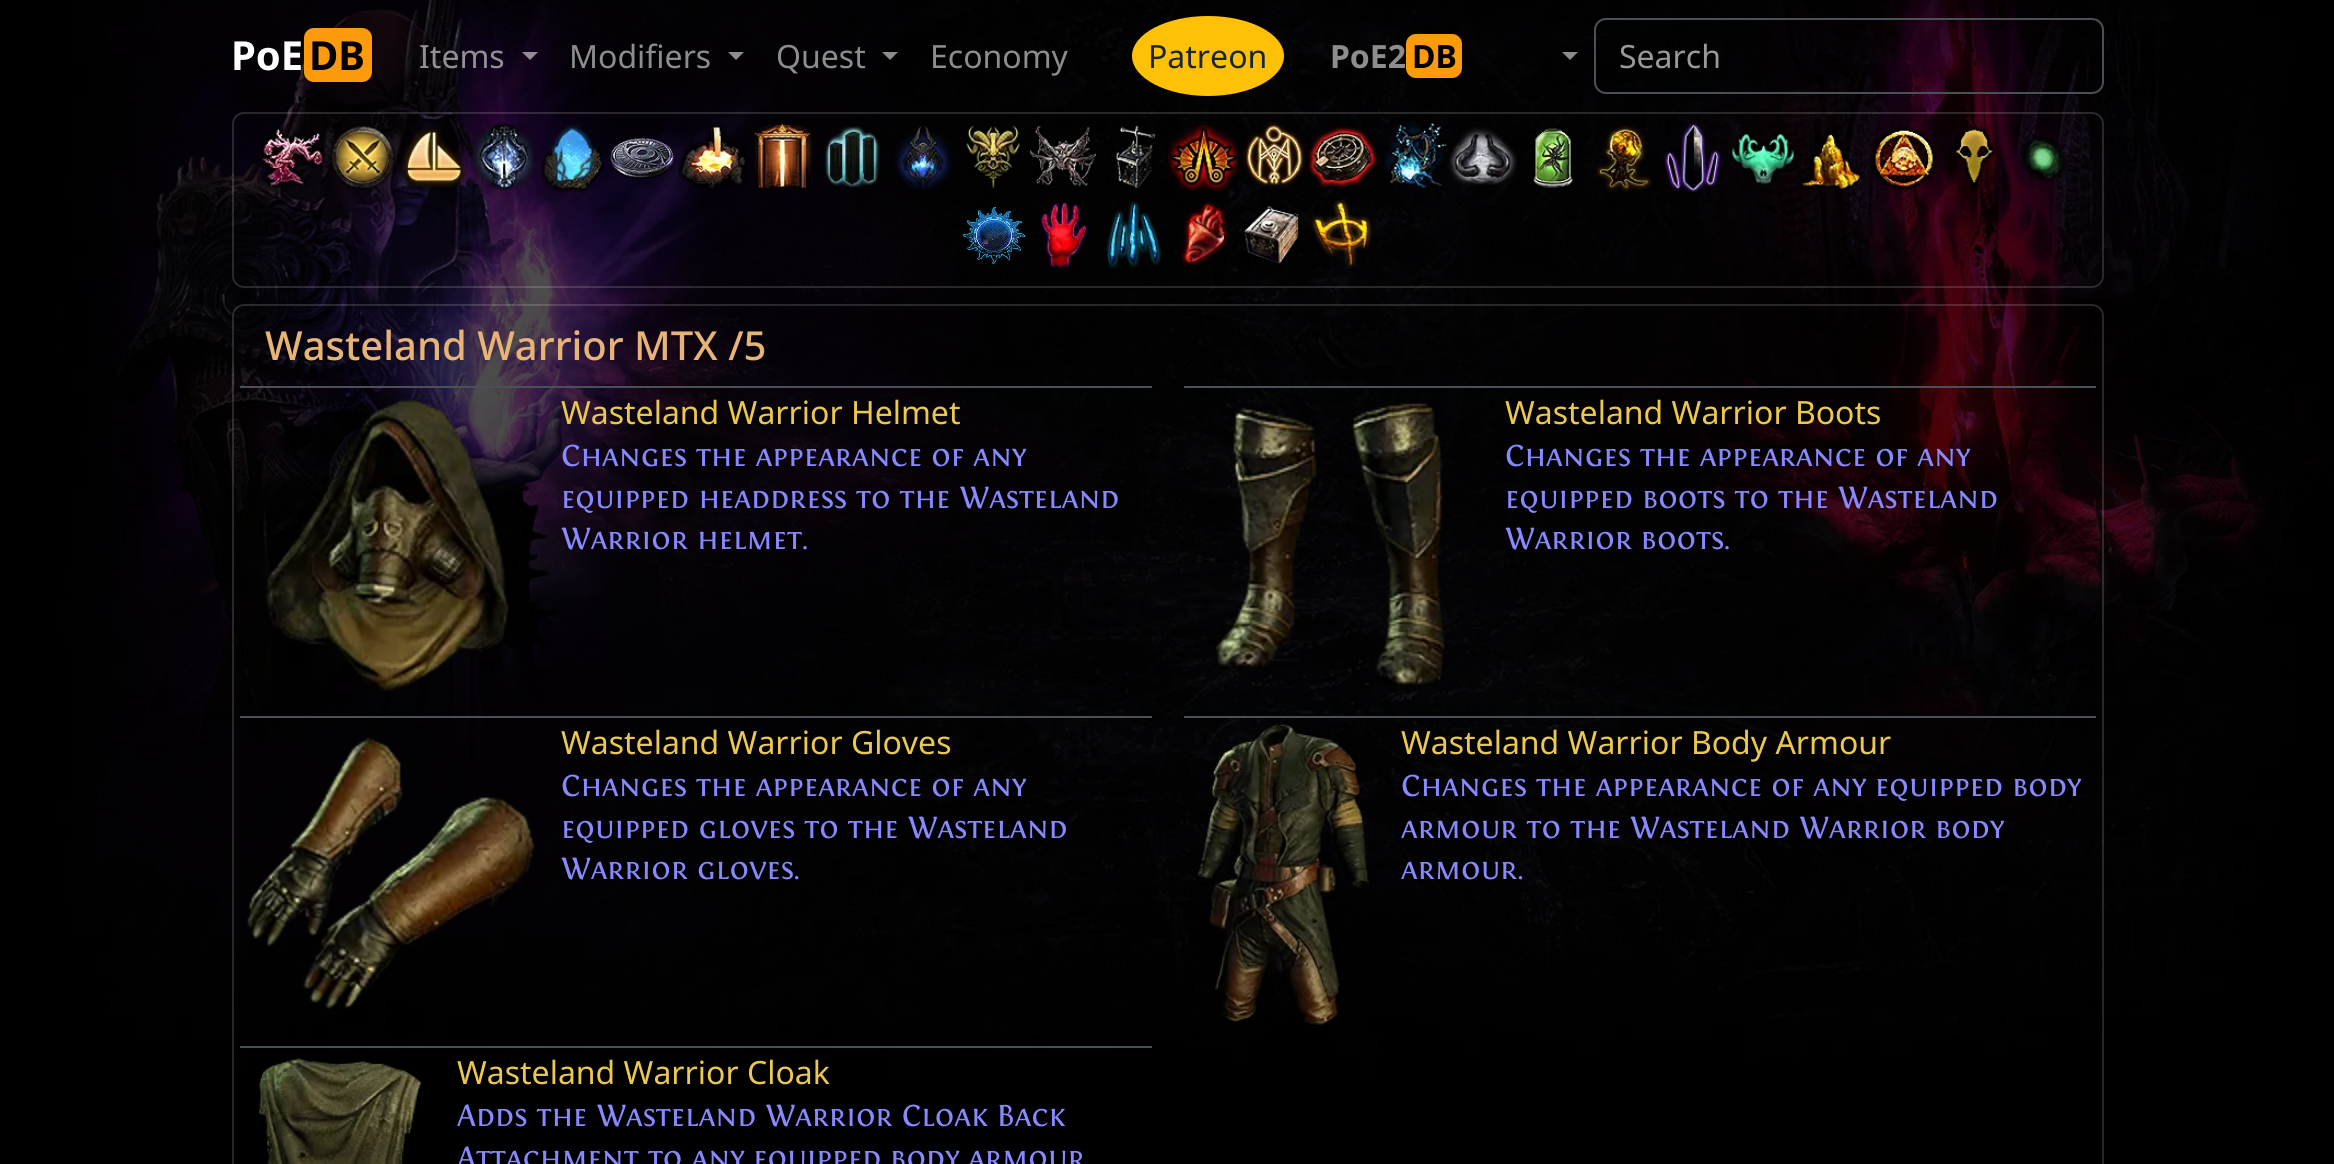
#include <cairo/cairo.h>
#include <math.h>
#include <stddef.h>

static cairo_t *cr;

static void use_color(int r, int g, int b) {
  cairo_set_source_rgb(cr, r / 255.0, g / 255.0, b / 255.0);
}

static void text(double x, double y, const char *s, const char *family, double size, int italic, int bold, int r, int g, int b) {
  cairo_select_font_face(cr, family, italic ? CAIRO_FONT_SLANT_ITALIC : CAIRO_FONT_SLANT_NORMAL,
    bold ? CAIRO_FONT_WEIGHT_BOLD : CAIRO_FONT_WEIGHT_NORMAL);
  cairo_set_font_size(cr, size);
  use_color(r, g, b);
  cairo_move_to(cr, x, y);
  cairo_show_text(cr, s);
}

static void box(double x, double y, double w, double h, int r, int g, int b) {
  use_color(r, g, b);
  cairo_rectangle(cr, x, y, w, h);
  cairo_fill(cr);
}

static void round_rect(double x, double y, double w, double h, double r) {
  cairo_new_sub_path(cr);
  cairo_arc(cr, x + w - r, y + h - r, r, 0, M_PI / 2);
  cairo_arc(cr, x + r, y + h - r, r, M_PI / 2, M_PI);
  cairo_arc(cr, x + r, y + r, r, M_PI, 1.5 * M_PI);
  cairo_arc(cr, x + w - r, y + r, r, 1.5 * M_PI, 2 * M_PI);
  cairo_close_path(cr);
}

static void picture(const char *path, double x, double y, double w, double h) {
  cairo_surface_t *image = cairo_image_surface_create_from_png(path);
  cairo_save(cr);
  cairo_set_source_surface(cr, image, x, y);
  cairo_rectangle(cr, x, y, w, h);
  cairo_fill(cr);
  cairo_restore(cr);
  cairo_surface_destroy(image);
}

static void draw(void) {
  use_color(255, 255, 255);
  cairo_paint(cr);
  picture("img_01.png", 0, 0, 2334, 1164);
  use_color(253, 155, 13);
  round_rect(304, 28, 68, 54, 10);
  cairo_fill(cr);
  cairo_set_source_rgba(cr, 1, 1, 1, 0.55);
  cairo_new_path(cr);
  cairo_move_to(cr, 522, 52);
  cairo_line_to(cr, 538, 52);
  cairo_line_to(cr, 530, 60);
  cairo_close_path(cr);
  cairo_fill(cr);
  use_color(142, 141, 142);
  cairo_new_path(cr);
  cairo_move_to(cr, 728, 52);
  cairo_line_to(cr, 744, 52);
  cairo_line_to(cr, 736, 60);
  cairo_close_path(cr);
  cairo_fill(cr);
  use_color(141, 141, 141);
  cairo_new_path(cr);
  cairo_move_to(cr, 882, 52);
  cairo_line_to(cr, 898, 52);
  cairo_line_to(cr, 890, 60);
  cairo_close_path(cr);
  cairo_fill(cr);
  use_color(255, 193, 7);
  cairo_new_path(cr);
  cairo_move_to(cr, 1208, 16);
  cairo_curve_to(cr, 1250, 16, 1284, 34, 1284, 56);
  cairo_curve_to(cr, 1284, 78, 1250, 96, 1208, 96);
  cairo_curve_to(cr, 1166, 96, 1132, 78, 1132, 56);
  cairo_curve_to(cr, 1132, 34, 1166, 16, 1208, 16);
  cairo_close_path(cr);
  cairo_fill(cr);
  use_color(253, 155, 13);
  round_rect(1406, 34, 56, 44, 10);
  cairo_fill(cr);
  use_color(141, 141, 142);
  cairo_new_path(cr);
  cairo_move_to(cr, 1562, 52);
  cairo_line_to(cr, 1578, 52);
  cairo_line_to(cr, 1570, 60);
  cairo_close_path(cr);
  cairo_fill(cr);
  round_rect(1595, 19, 508, 74, 11);
  use_color(73, 80, 87);
  cairo_stroke(cr);
  round_rect(233, 113, 1870, 174, 11);
  cairo_set_source_rgba(cr, 1, 1, 1, 0.15);
  cairo_stroke(cr);
  picture("img_02.png", 261, 127, 66, 63);
  picture("img_03.png", 330, 126, 65, 64);
  picture("img_04.png", 401, 127, 67, 62);
  picture("img_05.png", 471, 122, 65, 69);
  picture("img_06.png", 540, 125, 66, 67);
  picture("img_07.png", 610, 137, 64, 43);
  picture("img_08.png", 678, 123, 70, 67);
  picture("img_09.png", 754, 123, 59, 65);
  picture("img_10.png", 824, 126, 56, 62);
  picture("img_11.png", 894, 124, 64, 68);
  picture("img_12.png", 966, 125, 54, 64);
  picture("img_13.png", 1030, 126, 66, 61);
  picture("img_14.png", 1116, 125, 40, 63);
  picture("img_15.png", 1168, 122, 70, 70);
  picture("img_16.png", 1243, 122, 63, 66);
  picture("img_17.png", 1308, 126, 70, 63);
  picture("img_18.png", 1384, 122, 63, 67);
  picture("img_19.png", 1448, 127, 69, 58);
  picture("img_20.png", 1532, 127, 41, 61);
  picture("img_21.png", 1595, 125, 57, 67);
  picture("img_22.png", 1664, 122, 58, 70);
  picture("img_23.png", 1731, 133, 64, 53);
  picture("img_24.png", 1799, 132, 64, 58);
  picture("img_25.png", 1870, 125, 67, 67);
  picture("img_26.png", 1954, 125, 43, 65);
  picture("img_27.png", 2020, 135, 48, 46);
  picture("img_28.png", 962, 206, 64, 58);
  picture("img_29.png", 1040, 200, 49, 70);
  picture("img_30.png", 1106, 201, 55, 68);
  picture("img_31.png", 1181, 201, 48, 66);
  picture("img_32.png", 1244, 206, 56, 58);
  picture("img_33.png", 1311, 200, 61, 68);
  round_rect(233, 305, 1870, 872, 11);
  cairo_stroke(cr);
  box(240, 386, 912, 2, 73, 80, 87);
  picture("img_34.png", 266, 399, 243, 293);
  box(1184, 386, 912, 2, 73, 80, 87);
  picture("img_35.png", 1215, 403, 230, 282);
  box(240, 716, 912, 2, 73, 80, 87);
  picture("img_36.png", 247, 737, 288, 272);
  box(1184, 716, 912, 2, 73, 80, 87);
  picture("img_37.png", 1197, 724, 172, 301);
  box(240, 1046, 912, 2, 73, 80, 87);
  picture("img_38.png", 259, 1058, 162, 106);
  text(231, 70, "PoE", "Noto Sans", 40, 0, 1, 255, 255, 255);
  text(309, 70, "DB", "Noto Sans", 40, 0, 1, 0, 0, 0);
  text(419, 68, "Items", "Noto Sans", 32, 0, 0, 146, 143, 149);
  text(569, 68, "Modifiers", "Noto Sans", 32, 0, 0, 141, 141, 142);
  text(776, 68, "Quest", "Noto Sans", 32, 0, 0, 141, 141, 142);
  text(930, 68, "Economy", "Noto Sans", 32, 0, 0, 141, 141, 142);
  text(1148, 68, "Patreon", "Noto Sans", 32, 0, 0, 23, 37, 52);
  text(1330, 68, "PoE2", "Noto Sans", 32, 0, 1, 141, 141, 142);
  text(1412, 68, "DB", "Noto Sans", 32, 0, 1, 0, 0, 0);
  text(1619, 68, "Search", "Noto Sans", 32, 0, 0, 153, 153, 153);
  text(265, 360, "Wasteland Warrior MTX /5", "Noto Sans Medium", 40, 0, 0, 231, 180, 120);
  text(561, 424, "Wasteland Warrior Helmet", "Noto Sans", 32, 0, 0, 235, 200, 80);
  text(561, 466, "Changes the appearance of any", "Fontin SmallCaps", 32, 0, 0, 136, 136, 255);
  text(561, 508, "equipped headdress to the Wasteland", "Fontin SmallCaps", 32, 0, 0, 136, 136, 255);
  text(561, 549, "Warrior helmet.", "Fontin SmallCaps", 32, 0, 0, 136, 136, 255);
  text(1505, 424, "Wasteland Warrior Boots", "Noto Sans", 32, 0, 0, 235, 200, 80);
  text(1505, 466, "Changes the appearance of any", "Fontin SmallCaps", 32, 0, 0, 136, 136, 255);
  text(1505, 508, "equipped boots to the Wasteland", "Fontin SmallCaps", 32, 0, 0, 136, 136, 255);
  text(1505, 549, "Warrior boots.", "Fontin SmallCaps", 32, 0, 0, 136, 136, 255);
  text(561, 754, "Wasteland Warrior Gloves", "Noto Sans", 32, 0, 0, 235, 200, 80);
  text(561, 796, "Changes the appearance of any", "Fontin SmallCaps", 32, 0, 0, 136, 136, 255);
  text(561, 838, "equipped gloves to the Wasteland", "Fontin SmallCaps", 32, 0, 0, 136, 136, 255);
  text(561, 879, "Warrior gloves.", "Fontin SmallCaps", 32, 0, 0, 136, 136, 255);
  text(1401, 754, "Wasteland Warrior Body Armour", "Noto Sans", 32, 0, 0, 235, 200, 80);
  text(1401, 796, "Changes the appearance of any equipped body", "Fontin SmallCaps", 32, 0, 0, 136, 136, 255);
  text(1401, 838, "armour to the Wasteland Warrior body", "Fontin SmallCaps", 32, 0, 0, 136, 136, 255);
  text(1401, 879, "armour.", "Fontin SmallCaps", 32, 0, 0, 136, 136, 255);
  text(457, 1084, "Wasteland Warrior Cloak", "Noto Sans", 32, 0, 0, 235, 200, 80);
  text(457, 1126, "Adds the Wasteland Warrior Cloak Back", "Fontin SmallCaps", 32, 0, 0, 136, 136, 255);
  text(457, 1168, "Attachment to any equipped body armour", "Fontin SmallCaps", 32, 0, 0, 136, 136, 255);
}

int main(void) {
  cairo_surface_t *surface = cairo_image_surface_create(CAIRO_FORMAT_RGB24, 2334, 1164);
  cr = cairo_create(surface);
  cairo_font_options_t *options = cairo_font_options_create();
  cairo_font_options_set_hint_metrics(options, CAIRO_HINT_METRICS_OFF);
  cairo_font_options_set_hint_style(options, CAIRO_HINT_STYLE_NONE);
  cairo_set_font_options(cr, options);
  cairo_set_miter_limit(cr, 4);
  draw();
  cairo_surface_write_to_png(surface, "out.png");
  cairo_font_options_destroy(options);
  cairo_destroy(cr);
  cairo_surface_destroy(surface);
  return 0;
}
